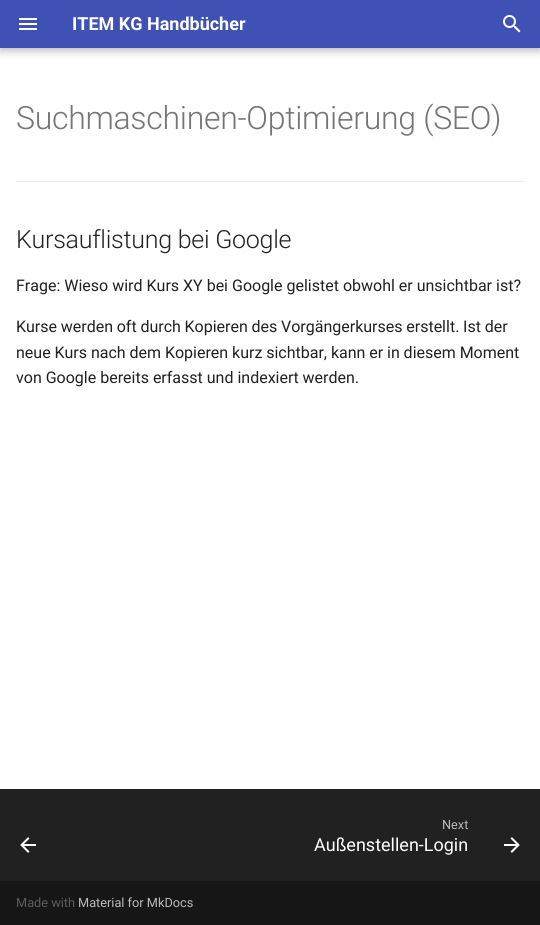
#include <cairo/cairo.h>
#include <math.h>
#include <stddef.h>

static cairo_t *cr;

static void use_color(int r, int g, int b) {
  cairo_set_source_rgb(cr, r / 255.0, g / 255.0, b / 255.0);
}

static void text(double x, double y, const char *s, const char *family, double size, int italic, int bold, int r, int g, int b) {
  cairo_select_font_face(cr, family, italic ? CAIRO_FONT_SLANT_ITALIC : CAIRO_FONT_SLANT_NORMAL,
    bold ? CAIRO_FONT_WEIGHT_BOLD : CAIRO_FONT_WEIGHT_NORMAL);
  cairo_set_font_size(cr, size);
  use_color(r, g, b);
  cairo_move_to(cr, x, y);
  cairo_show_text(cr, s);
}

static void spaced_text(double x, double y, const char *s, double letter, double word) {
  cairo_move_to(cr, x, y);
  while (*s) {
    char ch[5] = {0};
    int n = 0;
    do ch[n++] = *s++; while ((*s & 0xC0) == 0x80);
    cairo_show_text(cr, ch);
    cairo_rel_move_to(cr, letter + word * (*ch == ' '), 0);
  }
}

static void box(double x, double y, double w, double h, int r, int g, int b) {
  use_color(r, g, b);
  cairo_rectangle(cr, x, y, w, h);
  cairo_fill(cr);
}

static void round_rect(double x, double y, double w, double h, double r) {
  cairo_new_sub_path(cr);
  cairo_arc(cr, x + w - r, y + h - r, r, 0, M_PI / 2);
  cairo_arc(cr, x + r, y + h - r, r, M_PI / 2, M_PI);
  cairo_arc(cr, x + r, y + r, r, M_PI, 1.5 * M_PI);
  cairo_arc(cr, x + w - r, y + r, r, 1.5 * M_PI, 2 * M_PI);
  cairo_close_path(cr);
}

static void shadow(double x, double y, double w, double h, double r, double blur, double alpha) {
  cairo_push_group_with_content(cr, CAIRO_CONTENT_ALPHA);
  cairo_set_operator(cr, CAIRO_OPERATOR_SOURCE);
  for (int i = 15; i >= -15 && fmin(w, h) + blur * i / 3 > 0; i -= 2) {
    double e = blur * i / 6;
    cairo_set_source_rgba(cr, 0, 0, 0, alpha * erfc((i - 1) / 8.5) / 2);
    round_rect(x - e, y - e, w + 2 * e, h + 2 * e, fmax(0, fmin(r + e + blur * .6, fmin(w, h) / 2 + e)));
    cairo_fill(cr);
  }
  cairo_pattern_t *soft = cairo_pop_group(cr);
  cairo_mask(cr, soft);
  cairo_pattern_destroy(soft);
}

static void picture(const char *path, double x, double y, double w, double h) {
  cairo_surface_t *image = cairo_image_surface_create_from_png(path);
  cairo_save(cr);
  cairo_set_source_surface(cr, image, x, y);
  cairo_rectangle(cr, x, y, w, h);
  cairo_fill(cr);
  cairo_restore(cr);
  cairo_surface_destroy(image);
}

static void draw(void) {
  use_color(255, 255, 255);
  cairo_paint(cr);
  use_color(0, 0, 0);
  shadow(0, 4, 540, 48, 0, 4, 0.2);
  shadow(0, 0, 540, 48, 0, 2, 0.1);
  box(0, 0, 540, 48, 64, 81, 181);
  picture("img_01.png", 19, 18, 18, 12);
  picture("img_02.png", 503, 15, 18, 18);
  box(16, 181, 508, 1, 237, 237, 237);
  box(0, 789, 540, 92, 33, 33, 33);
  picture("img_03.png", 20, 837, 16, 16);
  picture("img_04.png", 504, 837, 16, 16);
  box(0, 881, 540, 44, 22, 22, 22);
  text(72, 30, "ITEM KG Handbücher", "Roboto", 18, 0, 1, 255, 255, 255);
  cairo_select_font_face(cr, "Roboto Light", CAIRO_FONT_SLANT_NORMAL, CAIRO_FONT_WEIGHT_NORMAL);
  cairo_set_font_size(cr, 32);
  use_color(117, 117, 117);
  spaced_text(16, 129, "Suchmaschinen-Optimierung (SEO)", -0.3, 0);
  cairo_set_font_size(cr, 25);
  use_color(33, 33, 33);
  spaced_text(16, 248, "Kursauflistung bei Google", -0.25, 0);
  text(16, 291, "Frage: Wieso wird Kurs XY bei Google gelistet obwohl er unsichtbar ist?", "Roboto", 16, 0, 0, 33, 33, 33);
  spaced_text(16, 332, "Kurse werden oft durch Kopieren des Vorgängerkurses erstellt. Ist der", 0, -0.25);
  spaced_text(16, 358, "neue Kurs nach dem Kopieren kurz sichtbar, kann er in diesem Moment", 0, -0.1);
  text(16, 383, "von Google bereits erfasst und indexiert werden.", "Roboto", 16, 0, 0, 33, 33, 33);
  text(442, 829, "Next", "Roboto", 12.75, 0, 0, 185, 185, 185);
  text(314, 851, "Außenstellen-Login", "Roboto", 18, 0, 0, 255, 255, 255);
  text(16, 907, "Made with", "Roboto", 12.75, 0, 0, 92, 92, 92);
  text(78, 907, "Material for MkDocs", "Roboto", 12.75, 0, 0, 185, 185, 185);
}

int main(void) {
  cairo_surface_t *surface = cairo_image_surface_create(CAIRO_FORMAT_RGB24, 540, 925);
  cr = cairo_create(surface);
  cairo_font_options_t *options = cairo_font_options_create();
  cairo_font_options_set_hint_metrics(options, CAIRO_HINT_METRICS_OFF);
  cairo_font_options_set_hint_style(options, CAIRO_HINT_STYLE_NONE);
  cairo_set_font_options(cr, options);
  cairo_set_miter_limit(cr, 4);
  draw();
  cairo_surface_write_to_png(surface, "out.png");
  cairo_font_options_destroy(options);
  cairo_destroy(cr);
  cairo_surface_destroy(surface);
  return 0;
}
